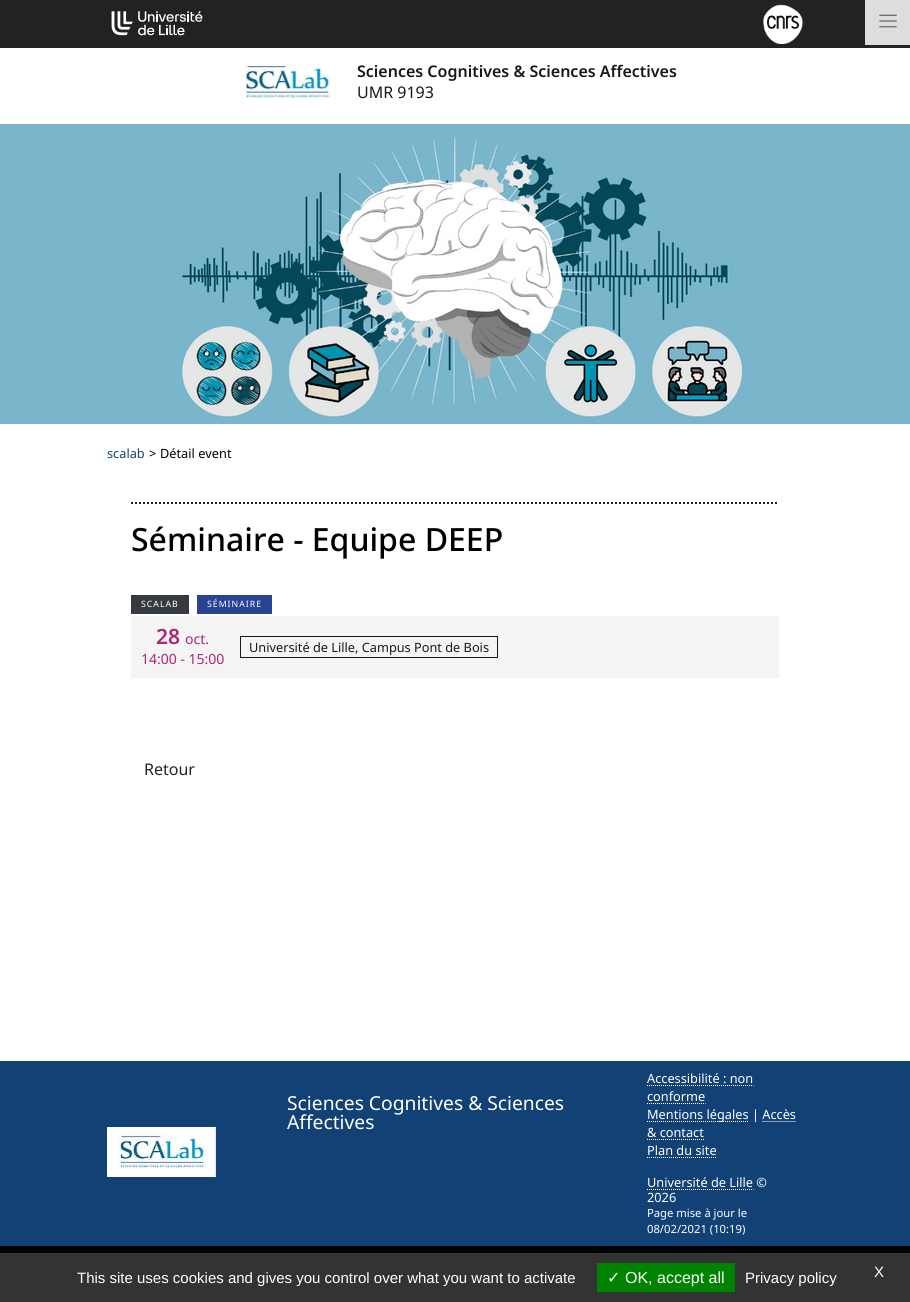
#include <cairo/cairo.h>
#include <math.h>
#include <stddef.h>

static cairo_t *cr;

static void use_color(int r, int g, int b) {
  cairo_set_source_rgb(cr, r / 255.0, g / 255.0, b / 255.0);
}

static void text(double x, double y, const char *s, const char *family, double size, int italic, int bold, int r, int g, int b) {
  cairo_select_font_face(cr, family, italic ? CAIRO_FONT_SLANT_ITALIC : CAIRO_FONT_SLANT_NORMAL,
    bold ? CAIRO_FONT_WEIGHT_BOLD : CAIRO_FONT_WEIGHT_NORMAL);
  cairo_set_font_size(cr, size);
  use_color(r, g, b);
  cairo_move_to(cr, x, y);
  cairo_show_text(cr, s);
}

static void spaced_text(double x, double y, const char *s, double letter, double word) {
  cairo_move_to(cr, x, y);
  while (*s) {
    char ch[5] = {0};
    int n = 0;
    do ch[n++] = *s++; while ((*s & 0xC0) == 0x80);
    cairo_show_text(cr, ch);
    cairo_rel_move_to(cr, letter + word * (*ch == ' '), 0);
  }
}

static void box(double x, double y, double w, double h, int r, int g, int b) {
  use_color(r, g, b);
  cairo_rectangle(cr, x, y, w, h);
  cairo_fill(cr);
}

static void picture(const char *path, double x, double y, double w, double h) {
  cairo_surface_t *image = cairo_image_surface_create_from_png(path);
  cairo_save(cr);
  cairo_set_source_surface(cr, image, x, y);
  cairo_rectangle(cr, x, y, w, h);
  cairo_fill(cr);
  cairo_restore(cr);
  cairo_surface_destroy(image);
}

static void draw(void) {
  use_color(255, 255, 255);
  cairo_paint(cr);
  box(0, 0, 910, 48, 34, 34, 34);
  picture("img_01.png", 111, 11, 92, 25);
  picture("img_02.png", 763, 4, 40, 40);
  box(865, 0, 45, 45, 221, 221, 221);
  picture("img_03.png", 879, 14, 18, 14);
  picture("img_04.png", 244, 63, 87, 35);
  picture("img_05.png", 0, 124, 910, 300);
  cairo_new_path(cr);
  cairo_move_to(cr, 131, 503);
  cairo_line_to(cr, 779, 503);
  use_color(34, 34, 34);
  cairo_set_dash(cr, (double[]){2, 2}, 2, 0);
  cairo_stroke(cr);
  box(131, 595, 58, 19, 52, 58, 64);
  box(197, 595, 75, 19, 39, 67, 145);
  box(131, 616, 648, 62, 244, 244, 244);
  cairo_rectangle(cr, 240.5, 636.5, 257, 21);
  use_color(24, 24, 24);
  cairo_set_line_width(cr, 1);
  cairo_set_dash(cr, NULL, 0, 0);
  cairo_stroke(cr);
  box(0, 1061, 910, 185, 18, 65, 117);
  cairo_new_path(cr);
  cairo_move_to(cr, 647, 1085.5);
  cairo_line_to(cr, 753.5, 1085.5);
  use_color(255, 255, 255);
  cairo_set_dash(cr, (double[]){1, 1}, 2, 0);
  cairo_stroke(cr);
  cairo_new_path(cr);
  cairo_move_to(cr, 647, 1103.5);
  cairo_line_to(cr, 705.5, 1103.5);
  cairo_stroke(cr);
  cairo_new_path(cr);
  cairo_move_to(cr, 647, 1121.5);
  cairo_line_to(cr, 749, 1121.5);
  cairo_stroke(cr);
  cairo_new_path(cr);
  cairo_move_to(cr, 762.5, 1121.5);
  cairo_line_to(cr, 796.5, 1121.5);
  cairo_stroke(cr);
  cairo_new_path(cr);
  cairo_move_to(cr, 647, 1139.5);
  cairo_line_to(cr, 704, 1139.5);
  cairo_stroke(cr);
  cairo_new_path(cr);
  cairo_move_to(cr, 647, 1157.5);
  cairo_line_to(cr, 717, 1157.5);
  cairo_stroke(cr);
  cairo_new_path(cr);
  cairo_move_to(cr, 647, 1189.5);
  cairo_line_to(cr, 753.5, 1189.5);
  cairo_stroke(cr);
  picture("img_06.png", 107, 1127, 109, 50);
  box(0, 1246, 910, 7, 0, 0, 0);
  box(0, 1253, 910, 49, 51, 51, 51);
  box(597, 1263, 138, 29, 0, 131, 0);
  text(357, 77, "Sciences Cognitives & Sciences Affectives", "Noto Sans SemiBold", 16, 0, 0, 24, 24, 24);
  text(357, 98, "UMR 9193", "Noto Sans", 16, 0, 0, 24, 24, 24);
  text(107, 458, "scalab", "Noto Sans", 12.75, 0, 0, 18, 65, 117);
  text(149, 458, ">", "Noto Sans", 12.75, 0, 0, 0, 0, 0);
  text(160, 458, "Détail event", "Noto Sans", 12.75, 0, 0, 0, 0, 0);
  text(131, 551, "Séminaire - Equipe DEEP", "Noto Sans Medium", 32, 0, 0, 0, 0, 0);
  cairo_select_font_face(cr, "Noto Sans", CAIRO_FONT_SLANT_NORMAL, CAIRO_FONT_WEIGHT_NORMAL);
  cairo_set_font_size(cr, 8.75);
  use_color(255, 255, 255);
  spaced_text(141, 607, "SCALAB", 1, 0);
  spaced_text(207, 607, "SÉMINAIRE", 1, 0);
  text(156, 644, "28", "Noto Sans SemiBold", 21, 0, 0, 174, 37, 115);
  text(185, 644, "oct.", "Noto Sans", 14, 0, 0, 174, 37, 115);
  text(141, 664, "14:00 - 15:00", "Noto Sans", 14, 0, 0, 174, 37, 115);
  text(249, 652, "Université de Lille, Campus Pont de Bois", "Noto Sans", 12.75, 0, 0, 24, 24, 24);
  text(144, 775, "Retour", "Noto Sans", 16, 0, 0, 33, 37, 41);
  text(287, 1110, "Sciences Cognitives & Sciences", "Noto Sans", 19.25, 0, 0, 255, 255, 255);
  text(287, 1129, "Affectives", "Noto Sans", 19.25, 0, 0, 255, 255, 255);
  text(647, 1083, "Accessibilité : non", "Noto Sans", 12.75, 0, 0, 255, 255, 255);
  text(647, 1101, "conforme", "Noto Sans", 12.75, 0, 0, 255, 255, 255);
  text(647, 1119, "Mentions légales | Accès", "Noto Sans", 12.75, 0, 0, 255, 255, 255);
  text(647, 1137, "& contact", "Noto Sans", 12.75, 0, 0, 255, 255, 255);
  text(647, 1155, "Plan du site", "Noto Sans", 12.75, 0, 0, 255, 255, 255);
  text(647, 1187, "Université de Lille ©", "Noto Sans", 12.75, 0, 0, 255, 255, 255);
  text(647, 1202, "2026", "Noto Sans", 12.75, 0, 0, 255, 255, 255);
  text(647, 1217, "Page mise à jour le", "Noto Sans", 11.25, 0, 0, 255, 255, 255);
  text(647, 1233, "08/02/2021 (10:19)", "Noto Sans", 11.25, 0, 0, 255, 255, 255);
  text(77, 1283, "This site uses cookies and gives you control over what you want to activate", "Liberation Sans", 15, 0, 0, 255, 255, 255);
  text(607, 1283, "✓", "DejaVu Sans", 16, 0, 0, 255, 255, 255);
  text(625, 1283, "OK, accept all", "Liberation Sans", 16, 0, 0, 255, 255, 255);
  text(745, 1283, "Privacy policy", "Liberation Sans", 15, 0, 0, 255, 255, 255);
  text(874, 1277, "X", "Liberation Sans", 15, 0, 0, 255, 255, 255);
}

int main(void) {
  cairo_surface_t *surface = cairo_image_surface_create(CAIRO_FORMAT_RGB24, 910, 1302);
  cr = cairo_create(surface);
  cairo_font_options_t *options = cairo_font_options_create();
  cairo_font_options_set_hint_metrics(options, CAIRO_HINT_METRICS_OFF);
  cairo_font_options_set_hint_style(options, CAIRO_HINT_STYLE_NONE);
  cairo_set_font_options(cr, options);
  cairo_set_miter_limit(cr, 4);
  draw();
  cairo_surface_write_to_png(surface, "out.png");
  cairo_font_options_destroy(options);
  cairo_destroy(cr);
  cairo_surface_destroy(surface);
  return 0;
}
